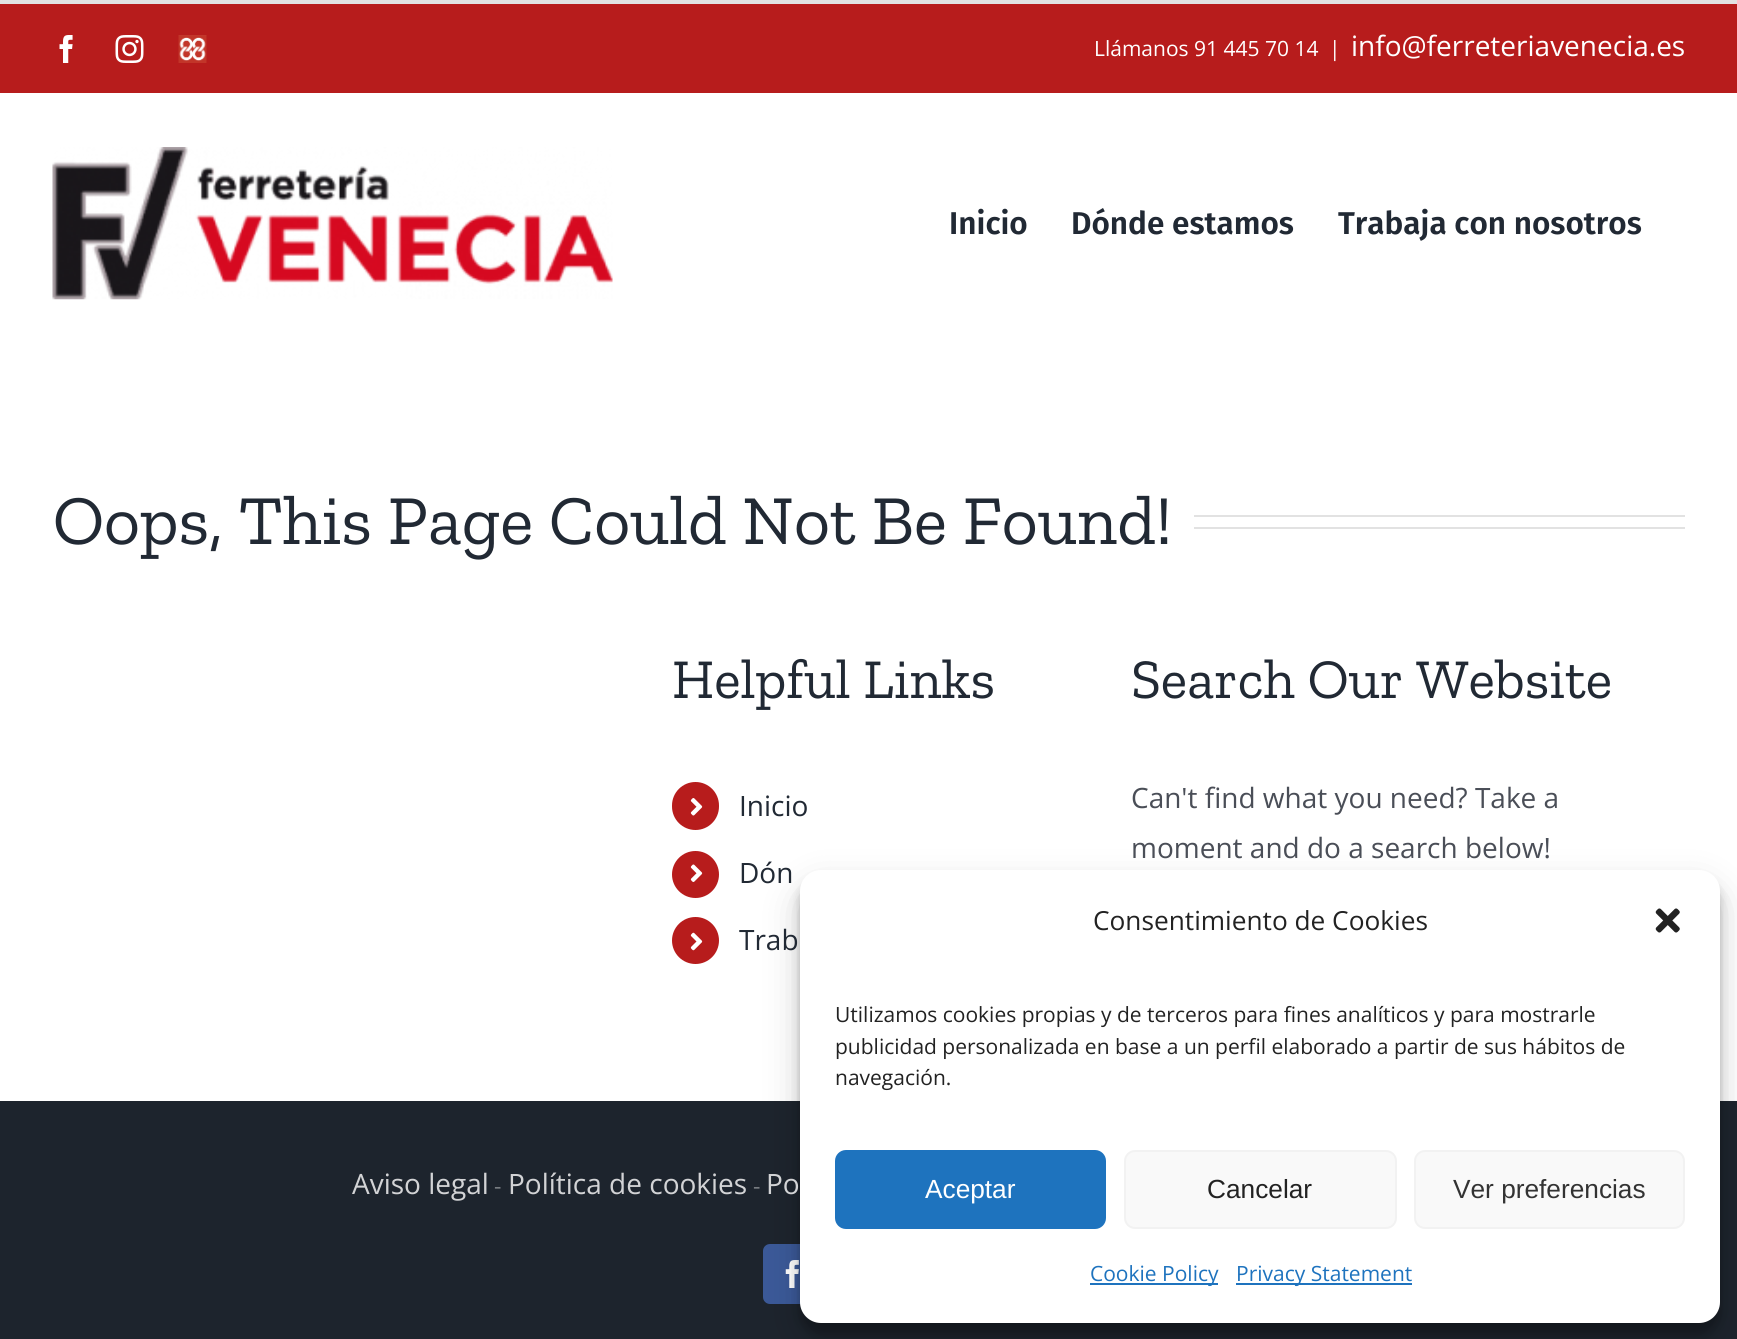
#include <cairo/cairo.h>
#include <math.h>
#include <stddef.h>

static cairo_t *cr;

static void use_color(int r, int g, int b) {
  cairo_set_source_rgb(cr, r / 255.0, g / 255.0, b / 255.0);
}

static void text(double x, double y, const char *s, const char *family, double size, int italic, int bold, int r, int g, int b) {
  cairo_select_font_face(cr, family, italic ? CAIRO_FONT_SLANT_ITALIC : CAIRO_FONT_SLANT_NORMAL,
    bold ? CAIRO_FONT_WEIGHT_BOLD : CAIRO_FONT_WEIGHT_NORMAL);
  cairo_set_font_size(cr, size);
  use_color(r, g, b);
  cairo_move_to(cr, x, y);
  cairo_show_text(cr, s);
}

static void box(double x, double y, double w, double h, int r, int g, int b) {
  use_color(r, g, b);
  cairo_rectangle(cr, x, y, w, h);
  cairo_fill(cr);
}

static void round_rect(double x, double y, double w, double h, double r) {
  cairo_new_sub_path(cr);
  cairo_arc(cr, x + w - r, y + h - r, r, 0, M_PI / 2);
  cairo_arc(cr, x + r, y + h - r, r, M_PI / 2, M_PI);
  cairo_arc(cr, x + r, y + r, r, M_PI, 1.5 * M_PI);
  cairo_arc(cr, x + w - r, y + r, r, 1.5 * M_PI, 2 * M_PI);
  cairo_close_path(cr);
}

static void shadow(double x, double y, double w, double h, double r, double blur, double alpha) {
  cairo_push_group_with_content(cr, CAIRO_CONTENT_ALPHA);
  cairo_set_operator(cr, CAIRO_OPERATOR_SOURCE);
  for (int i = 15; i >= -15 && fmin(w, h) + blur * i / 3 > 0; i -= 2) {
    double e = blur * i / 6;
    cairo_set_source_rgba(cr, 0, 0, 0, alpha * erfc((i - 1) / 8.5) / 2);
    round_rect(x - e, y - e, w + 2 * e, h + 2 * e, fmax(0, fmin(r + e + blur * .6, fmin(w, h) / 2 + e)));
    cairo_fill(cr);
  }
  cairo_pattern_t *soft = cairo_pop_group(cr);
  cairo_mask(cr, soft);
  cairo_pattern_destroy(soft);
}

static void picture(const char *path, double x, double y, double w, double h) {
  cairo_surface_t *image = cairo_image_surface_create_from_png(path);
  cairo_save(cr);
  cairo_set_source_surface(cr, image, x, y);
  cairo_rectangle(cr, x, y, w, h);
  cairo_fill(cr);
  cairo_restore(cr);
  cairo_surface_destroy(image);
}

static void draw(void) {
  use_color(226, 226, 226);
  cairo_paint(cr);
  box(0, 4, 1737, 89, 183, 28, 28);
  picture("img_01.png", 59, 35, 14, 28);
  picture("img_02.png", 115, 35, 29, 28);
  picture("img_03.png", 178, 35, 29, 28);
  box(0, 93, 1737, 1008, 255, 255, 255);
  picture("img_04.png", 52, 147, 561, 153);
  box(1194, 515, 491, 2, 226, 226, 226);
  box(1194, 527, 491, 2, 226, 226, 226);
  use_color(183, 28, 28);
  round_rect(672, 782, 47, 48, 23.5);
  cairo_fill(cr);
  picture("img_05.png", 690, 798, 13, 18);
  cairo_arc(cr, 695.5, 874.5, 23.5, 0, 2 * M_PI);
  cairo_fill(cr);
  picture("img_06.png", 690, 864, 13, 18);
  cairo_arc(cr, 695.5, 940.5, 23.5, 0, 2 * M_PI);
  cairo_fill(cr);
  picture("img_07.png", 690, 932, 13, 19);
  box(0, 1101, 1737, 238, 29, 36, 45);
  use_color(59, 89, 152);
  round_rect(764, 1245, 58, 58, 6);
  cairo_fill_preserve(cr);
  cairo_stroke(cr);
  picture("img_08.png", 785, 1260, 14, 28);
  use_color(0, 0, 0);
  shadow(800, 880, 920, 454, 21, 5, 0.23);
  shadow(800, 887, 920, 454, 21, 17.5, 0.19);
  use_color(255, 255, 255);
  round_rect(800, 870, 920, 453, 21);
  cairo_fill(cr);
  picture("img_09.png", 1655, 908, 25, 25);
  use_color(30, 115, 190);
  round_rect(836, 1151, 269, 77, 10);
  cairo_fill_preserve(cr);
  cairo_stroke(cr);
  use_color(249, 249, 249);
  round_rect(1125, 1151, 271, 77, 10);
  cairo_fill_preserve(cr);
  use_color(242, 242, 242);
  cairo_stroke(cr);
  use_color(249, 249, 249);
  round_rect(1415, 1151, 269, 77, 10);
  cairo_fill_preserve(cr);
  use_color(242, 242, 242);
  cairo_stroke(cr);
  box(1090, 1283, 128, 2, 30, 115, 190);
  box(1236, 1283, 176, 2, 30, 115, 190);
  text(1094, 56, "Llámanos 91 445 70 14", "Open Sans", 21, 0, 0, 255, 255, 255);
  text(1329, 56, "|", "Open Sans", 21, 0, 0, 255, 255, 255);
  text(1351, 56, "info@ferreteriavenecia.es", "Open Sans", 28, 0, 0, 255, 255, 255);
  text(949, 234, "Inicio", "Fira Sans SemiBold", 31.5, 0, 0, 33, 41, 52);
  text(1071, 234, "Dónde estamos", "Fira Sans SemiBold", 31.5, 0, 0, 33, 41, 52);
  text(1338, 234, "Trabaja con nosotros", "Fira Sans SemiBold", 31.5, 0, 0, 33, 41, 52);
  text(53, 544, "Oops, This Page Could Not Be Found!", "Zilla Slab", 70, 0, 0, 33, 41, 52);
  text(672, 698, "Helpful Links", "Zilla Slab", 56, 0, 0, 33, 41, 52);
  text(739, 816, "Inicio", "Open Sans", 28, 0, 0, 33, 41, 52);
  text(739, 883, "Dón", "Open Sans", 28, 0, 0, 33, 41, 52);
  text(739, 950, "Trab", "Open Sans", 28, 0, 0, 33, 41, 52);
  text(1131, 698, "Search Our Website", "Zilla Slab", 56, 0, 0, 33, 41, 52);
  text(1131, 808, "Can't find what you need? Take a", "Open Sans", 28, 0, 0, 74, 78, 87);
  text(1131, 858, "moment and do a search below!", "Open Sans", 28, 0, 0, 74, 78, 87);
  text(352, 1194, "Aviso legal", "Open Sans", 28, 0, 0, 210, 211, 213);
  text(494, 1194, "-", "Open Sans", 23, 0, 0, 119, 124, 129);
  text(508, 1194, "Política de cookies", "Open Sans", 28, 0, 0, 210, 211, 213);
  text(753, 1194, "-", "Open Sans", 23, 0, 0, 119, 124, 129);
  text(766, 1194, "Po", "Open Sans", 28, 0, 0, 210, 211, 213);
  text(1093, 930, "Consentimiento de Cookies", "Open Sans", 26.25, 0, 0, 34, 34, 34);
  text(835, 1022, "Utilizamos cookies propias y de terceros para fines analíticos y para mostrarle", "Open Sans", 21, 0, 0, 34, 34, 34);
  text(835, 1054, "publicidad personalizada en base a un perfil elaborado a partir de sus hábitos de", "Open Sans", 21, 0, 0, 34, 34, 34);
  text(835, 1085, "navegación.", "Open Sans", 21, 0, 0, 34, 34, 34);
  text(925, 1198, "Aceptar", "Liberation Sans", 26.25, 0, 0, 255, 255, 255);
  text(1207, 1198, "Cancelar", "Liberation Sans", 26.25, 0, 0, 34, 34, 34);
  text(1453, 1198, "Ver preferencias", "Liberation Sans", 26.25, 0, 0, 51, 51, 51);
  text(1090, 1281, "Cookie Policy", "Open Sans", 21, 0, 0, 30, 115, 190);
  text(1236, 1281, "Privacy Statement", "Open Sans", 21, 0, 0, 30, 115, 190);
}

int main(void) {
  cairo_surface_t *surface = cairo_image_surface_create(CAIRO_FORMAT_RGB24, 1737, 1339);
  cr = cairo_create(surface);
  cairo_font_options_t *options = cairo_font_options_create();
  cairo_font_options_set_hint_metrics(options, CAIRO_HINT_METRICS_OFF);
  cairo_font_options_set_hint_style(options, CAIRO_HINT_STYLE_NONE);
  cairo_set_font_options(cr, options);
  cairo_set_miter_limit(cr, 4);
  draw();
  cairo_surface_write_to_png(surface, "out.png");
  cairo_font_options_destroy(options);
  cairo_destroy(cr);
  cairo_surface_destroy(surface);
  return 0;
}
